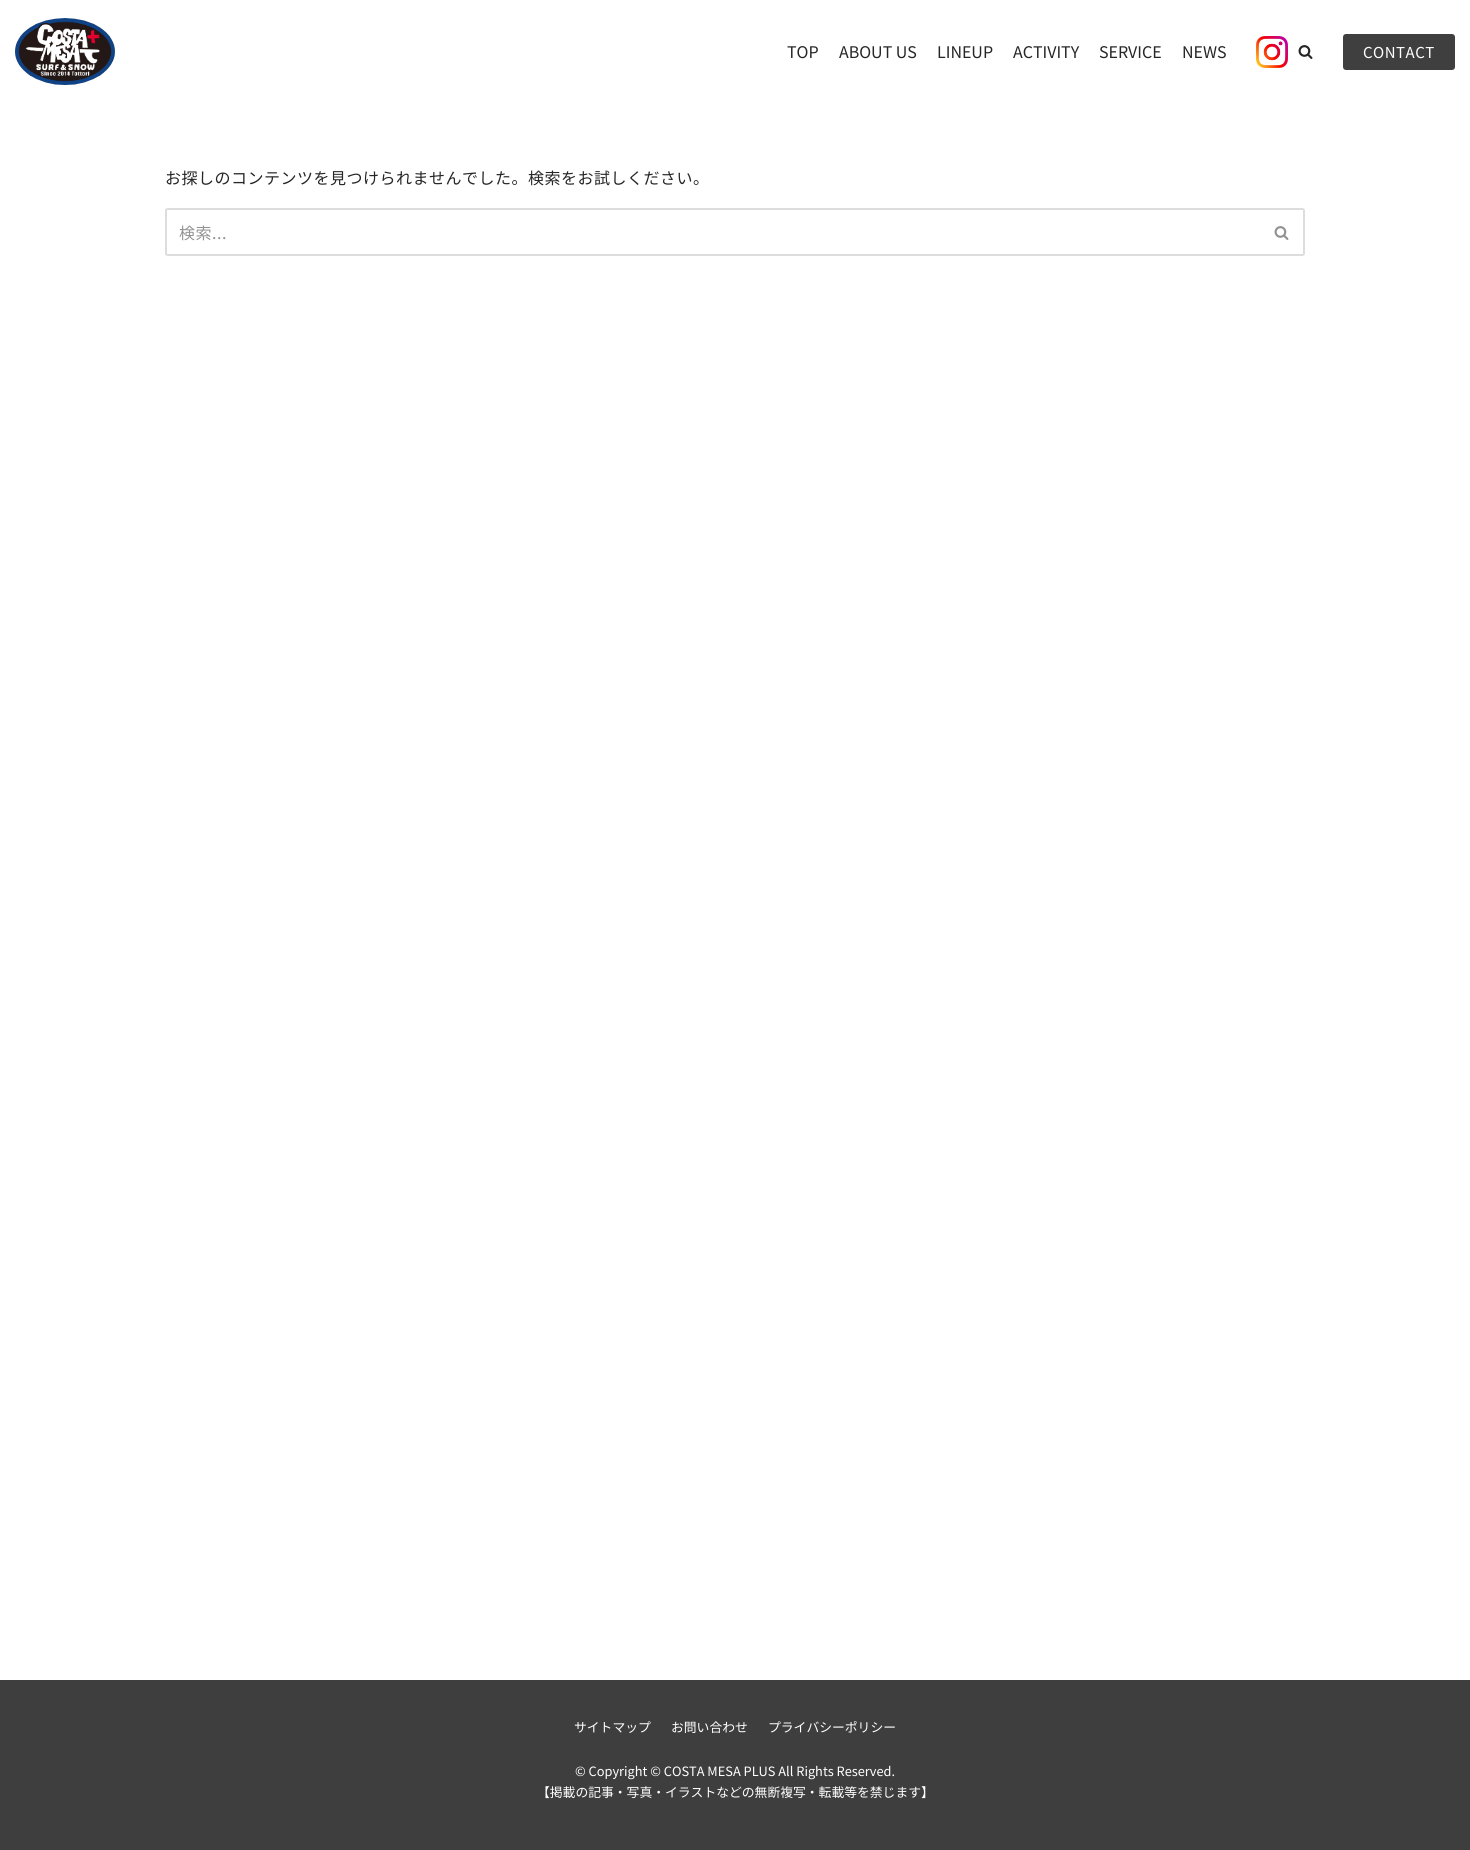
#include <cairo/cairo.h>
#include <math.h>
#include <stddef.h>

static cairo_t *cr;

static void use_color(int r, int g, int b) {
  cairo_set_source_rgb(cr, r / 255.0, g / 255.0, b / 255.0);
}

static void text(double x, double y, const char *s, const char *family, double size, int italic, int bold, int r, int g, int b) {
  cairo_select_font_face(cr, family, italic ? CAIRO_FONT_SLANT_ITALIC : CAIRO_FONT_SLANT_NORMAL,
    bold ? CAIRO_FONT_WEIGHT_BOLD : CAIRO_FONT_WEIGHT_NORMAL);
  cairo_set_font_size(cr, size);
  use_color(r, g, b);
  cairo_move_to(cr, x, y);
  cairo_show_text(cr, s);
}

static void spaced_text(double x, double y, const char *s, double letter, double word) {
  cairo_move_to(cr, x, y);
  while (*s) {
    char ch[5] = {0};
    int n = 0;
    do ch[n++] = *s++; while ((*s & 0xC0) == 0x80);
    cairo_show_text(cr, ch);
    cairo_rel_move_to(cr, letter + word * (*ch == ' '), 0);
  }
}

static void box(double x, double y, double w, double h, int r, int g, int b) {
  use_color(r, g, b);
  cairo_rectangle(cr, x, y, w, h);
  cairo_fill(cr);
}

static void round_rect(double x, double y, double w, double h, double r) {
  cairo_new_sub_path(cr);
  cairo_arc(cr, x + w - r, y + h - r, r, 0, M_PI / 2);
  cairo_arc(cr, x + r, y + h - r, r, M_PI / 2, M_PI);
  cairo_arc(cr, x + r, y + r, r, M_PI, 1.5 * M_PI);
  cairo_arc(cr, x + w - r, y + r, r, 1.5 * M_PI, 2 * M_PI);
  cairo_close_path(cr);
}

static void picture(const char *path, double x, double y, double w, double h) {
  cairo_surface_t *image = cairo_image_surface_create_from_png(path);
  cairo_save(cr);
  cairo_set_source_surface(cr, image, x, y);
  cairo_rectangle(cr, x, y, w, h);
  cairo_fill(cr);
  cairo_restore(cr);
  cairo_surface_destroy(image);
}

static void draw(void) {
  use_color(255, 255, 255);
  cairo_paint(cr);
  picture("img_01.png", 15, 18, 100, 67);
  picture("img_02.png", 1256, 36, 32, 32);
  picture("img_03.png", 1298, 45, 15, 14);
  use_color(63, 63, 63);
  round_rect(1343, 34, 112, 36, 3);
  cairo_fill(cr);
  use_color(221, 221, 221);
  cairo_set_fill_rule(cr, CAIRO_FILL_RULE_EVEN_ODD);
  cairo_new_path(cr);
  cairo_move_to(cr, 168, 208);
  cairo_line_to(cr, 1260, 208);
  cairo_line_to(cr, 1260, 256);
  cairo_line_to(cr, 168, 256);
  cairo_curve_to(cr, 166, 256, 165, 255, 165, 253);
  cairo_line_to(cr, 165, 211);
  cairo_curve_to(cr, 165, 209, 166, 208, 168, 208);
  cairo_close_path(cr);
  cairo_move_to(cr, 168, 210);
  cairo_line_to(cr, 1260, 210);
  cairo_line_to(cr, 1260, 254);
  cairo_line_to(cr, 168, 254);
  cairo_curve_to(cr, 167, 254, 167, 254, 167, 253);
  cairo_line_to(cr, 167, 211);
  cairo_curve_to(cr, 167, 210, 167, 210, 168, 210);
  cairo_close_path(cr);
  cairo_fill(cr);
  cairo_new_path(cr);
  cairo_move_to(cr, 1260, 208);
  cairo_line_to(cr, 1302, 208);
  cairo_curve_to(cr, 1304, 208, 1305, 209, 1305, 211);
  cairo_line_to(cr, 1305, 253);
  cairo_curve_to(cr, 1305, 255, 1304, 256, 1302, 256);
  cairo_line_to(cr, 1260, 256);
  cairo_close_path(cr);
  cairo_move_to(cr, 1260, 210);
  cairo_line_to(cr, 1302, 210);
  cairo_curve_to(cr, 1303, 210, 1303, 210, 1303, 211);
  cairo_line_to(cr, 1303, 253);
  cairo_curve_to(cr, 1303, 254, 1303, 254, 1302, 254);
  cairo_line_to(cr, 1260, 254);
  cairo_close_path(cr);
  cairo_fill(cr);
  picture("img_04.png", 1274, 226, 15, 14);
  box(0, 1680, 1470, 170, 62, 62, 62);
  text(787, 58, "TOP", "Noto Sans JP", 16, 0, 0, 39, 38, 38);
  text(839, 58, "ABOUT US", "Noto Sans JP", 16, 0, 0, 39, 38, 38);
  text(937, 58, "LINEUP", "Noto Sans JP", 16, 0, 0, 39, 38, 38);
  text(1013, 58, "ACTIVITY", "Noto Sans JP", 16, 0, 0, 39, 38, 38);
  text(1099, 58, "SERVICE", "Noto Sans JP", 16, 0, 0, 39, 38, 38);
  text(1182, 58, "NEWS", "Noto Sans JP", 16, 0, 0, 39, 38, 38);
  cairo_set_font_size(cr, 15);
  use_color(255, 255, 255);
  spaced_text(1363, 58, "CONTACT", 0.5, 0);
  cairo_set_font_size(cr, 16);
  use_color(39, 38, 38);
  spaced_text(165, 184, "お探しのコンテンツを見つけられませんでした。検索をお試しください。", 0.5, 0);
  use_color(147, 147, 147);
  spaced_text(179, 239, "検索...", 0.5, 0);
  text(574, 1732, "サイトマップ", "Noto Sans JP", 12.8, 0, 0, 255, 255, 255);
  text(671, 1732, "お問い合わせ", "Noto Sans JP", 12.8, 0, 0, 255, 255, 255);
  text(768, 1732, "プライバシーポリシー", "Noto Sans JP", 12.8, 0, 0, 255, 255, 255);
  text(575, 1776, "© Copyright © COSTA MESA PLUS All Rights Reserved.", "Noto Sans JP", 12.8, 0, 0, 255, 255, 255);
  text(537, 1797, "【掲載の記事・写真・イラストなどの無断複写・転載等を禁じます】", "Noto Sans JP", 12.8, 0, 0, 255, 255, 255);
}

int main(void) {
  cairo_surface_t *surface = cairo_image_surface_create(CAIRO_FORMAT_RGB24, 1470, 1850);
  cr = cairo_create(surface);
  cairo_font_options_t *options = cairo_font_options_create();
  cairo_font_options_set_hint_metrics(options, CAIRO_HINT_METRICS_OFF);
  cairo_font_options_set_hint_style(options, CAIRO_HINT_STYLE_NONE);
  cairo_set_font_options(cr, options);
  cairo_set_miter_limit(cr, 4);
  draw();
  cairo_surface_write_to_png(surface, "out.png");
  cairo_font_options_destroy(options);
  cairo_destroy(cr);
  cairo_surface_destroy(surface);
  return 0;
}
